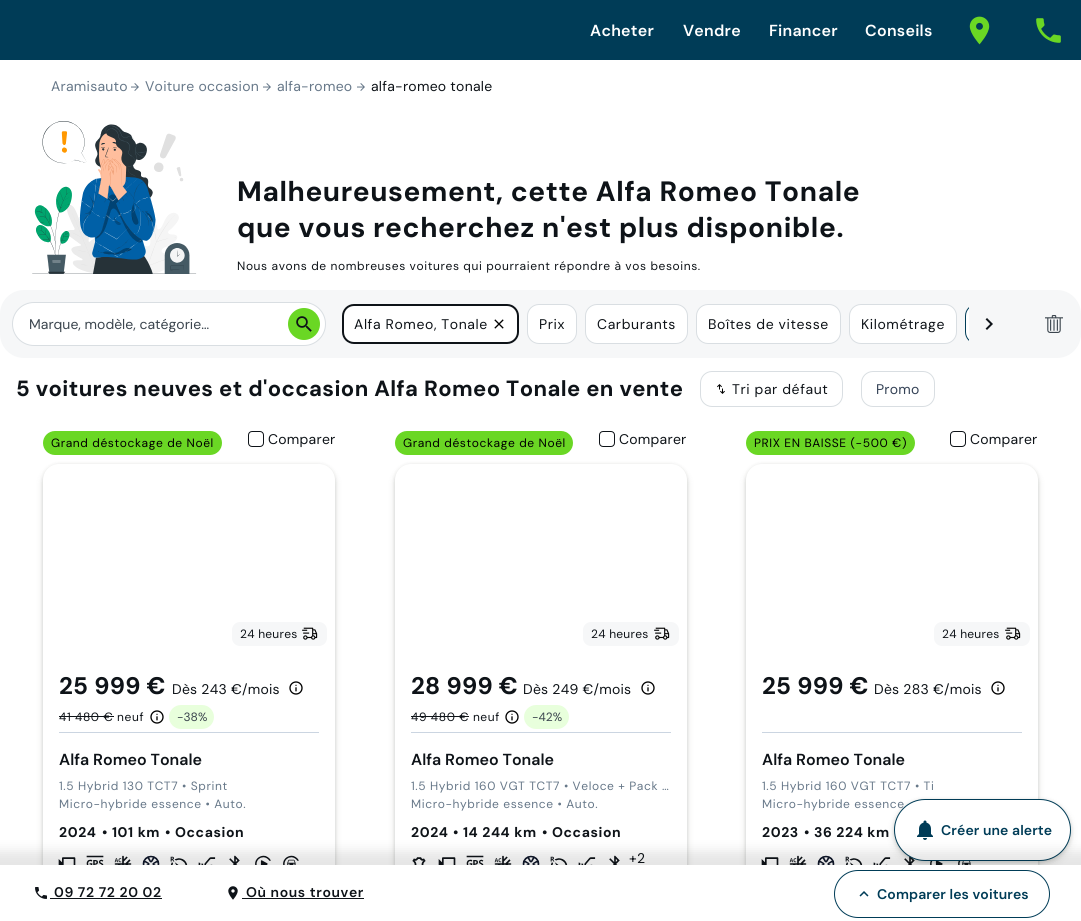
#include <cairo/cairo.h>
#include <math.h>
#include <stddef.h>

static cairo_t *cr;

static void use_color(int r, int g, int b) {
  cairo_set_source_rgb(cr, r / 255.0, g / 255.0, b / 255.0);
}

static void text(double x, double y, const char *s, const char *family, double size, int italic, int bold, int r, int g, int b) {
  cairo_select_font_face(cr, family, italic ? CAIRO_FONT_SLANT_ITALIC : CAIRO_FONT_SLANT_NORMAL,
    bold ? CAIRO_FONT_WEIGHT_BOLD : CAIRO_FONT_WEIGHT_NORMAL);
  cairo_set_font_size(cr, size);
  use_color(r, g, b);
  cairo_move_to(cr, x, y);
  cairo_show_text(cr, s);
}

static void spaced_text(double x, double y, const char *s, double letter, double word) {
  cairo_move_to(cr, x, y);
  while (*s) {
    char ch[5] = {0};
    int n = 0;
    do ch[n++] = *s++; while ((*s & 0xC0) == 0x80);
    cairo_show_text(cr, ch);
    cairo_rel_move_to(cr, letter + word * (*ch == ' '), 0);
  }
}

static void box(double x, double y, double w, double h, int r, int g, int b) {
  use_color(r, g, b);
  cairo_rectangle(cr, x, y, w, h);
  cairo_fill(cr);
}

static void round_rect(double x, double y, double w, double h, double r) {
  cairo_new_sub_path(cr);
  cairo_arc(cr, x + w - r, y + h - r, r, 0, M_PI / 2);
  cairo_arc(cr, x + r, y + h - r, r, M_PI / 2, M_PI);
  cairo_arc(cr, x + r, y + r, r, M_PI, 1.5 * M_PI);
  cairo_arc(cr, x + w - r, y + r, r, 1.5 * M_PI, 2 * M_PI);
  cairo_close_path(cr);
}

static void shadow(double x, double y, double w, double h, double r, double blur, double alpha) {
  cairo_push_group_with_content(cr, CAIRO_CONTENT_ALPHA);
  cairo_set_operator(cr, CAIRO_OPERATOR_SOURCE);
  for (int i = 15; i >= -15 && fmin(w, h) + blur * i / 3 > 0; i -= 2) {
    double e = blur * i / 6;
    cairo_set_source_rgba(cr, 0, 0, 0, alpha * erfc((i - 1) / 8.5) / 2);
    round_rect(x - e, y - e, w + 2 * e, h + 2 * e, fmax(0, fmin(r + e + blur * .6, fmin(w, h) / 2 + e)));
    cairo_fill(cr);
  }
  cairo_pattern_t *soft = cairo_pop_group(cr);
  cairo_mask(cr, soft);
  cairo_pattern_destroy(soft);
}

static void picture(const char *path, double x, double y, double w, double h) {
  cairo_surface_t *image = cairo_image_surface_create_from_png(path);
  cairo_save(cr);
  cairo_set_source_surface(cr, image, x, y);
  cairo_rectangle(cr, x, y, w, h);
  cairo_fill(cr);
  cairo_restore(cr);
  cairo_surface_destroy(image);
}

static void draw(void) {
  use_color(255, 255, 255);
  cairo_paint(cr);
  box(0, 0, 1081, 60, 0, 60, 87);
  picture("img_01.png", 969, 16, 21, 29);
  picture("img_02.png", 1036, 18, 25, 25);
  picture("img_03.png", 131, 83, 8, 8);
  picture("img_03.png", 263, 83, 8, 8);
  picture("img_03.png", 357, 83, 8, 8);
  picture("img_04.png", 32, 121, 165, 153);
  use_color(246, 247, 248);
  round_rect(0, 290, 1081, 68, 24);
  cairo_fill(cr);
  use_color(255, 255, 255);
  round_rect(12.5, 302.5, 313, 43, 21.5);
  cairo_fill_preserve(cr);
  use_color(217, 222, 226);
  cairo_set_line_width(cr, 1);
  cairo_stroke(cr);
  use_color(106, 215, 36);
  cairo_arc(cr, 304, 324, 16, 0, 2 * M_PI);
  cairo_fill(cr);
  picture("img_05.png", 296, 316, 16, 16);
  use_color(255, 255, 255);
  round_rect(343, 305, 175, 38, 11);
  cairo_fill_preserve(cr);
  use_color(14, 19, 24);
  cairo_set_line_width(cr, 2);
  cairo_stroke(cr);
  picture("img_06.png", 494, 319, 10, 10);
  use_color(255, 255, 255);
  round_rect(527.5, 304.5, 49, 39, 11.5);
  cairo_fill_preserve(cr);
  use_color(217, 222, 226);
  cairo_set_line_width(cr, 1);
  cairo_stroke(cr);
  use_color(255, 255, 255);
  round_rect(585.5, 304.5, 102, 39, 11.5);
  cairo_fill_preserve(cr);
  use_color(217, 222, 226);
  cairo_stroke(cr);
  use_color(255, 255, 255);
  round_rect(696.5, 304.5, 144, 39, 11.5);
  cairo_fill_preserve(cr);
  use_color(217, 222, 226);
  cairo_stroke(cr);
  use_color(255, 255, 255);
  round_rect(849.5, 304.5, 107, 39, 11.5);
  cairo_fill_preserve(cr);
  use_color(217, 222, 226);
  cairo_stroke(cr);
  use_color(255, 255, 255);
  cairo_new_path(cr);
  cairo_move_to(cr, 977, 304);
  cairo_line_to(cr, 1004, 304);
  cairo_line_to(cr, 1004, 344);
  cairo_line_to(cr, 977, 344);
  cairo_curve_to(cr, 970.5, 344, 965, 338.5, 965, 332);
  cairo_line_to(cr, 965, 316);
  cairo_curve_to(cr, 965, 309.5, 970.5, 304, 977, 304);
  cairo_close_path(cr);
  cairo_fill(cr);
  picture("img_08.png", 1045, 315, 18, 18);
  cairo_save(cr);
  cairo_rectangle(cr, 330, 304, 674, 40);
  cairo_clip(cr);
  round_rect(965.5, 304.5, 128, 39, 11.5);
  use_color(0, 60, 87);
  cairo_stroke(cr);
  cairo_restore(cr);
  box(969, 304, 35, 40, 246, 247, 248);
  picture("img_07.png", 985, 318, 8, 12);
  round_rect(700.5, 371.5, 142, 35, 11.5);
  use_color(217, 222, 226);
  cairo_stroke(cr);
  picture("img_09.png", 717, 384, 8, 10);
  round_rect(861.5, 371.5, 73, 35, 11.5);
  cairo_stroke(cr);
  use_color(106, 215, 36);
  round_rect(43, 431, 179, 24, 12);
  cairo_fill(cr);
  round_rect(248.5, 431.5, 15, 15, 3.5);
  use_color(14, 19, 24);
  cairo_stroke(cr);
  use_color(37, 42, 29);
  shadow(43, 468, 292, 424, 16, 4, 0.12);
  shadow(43, 465, 292, 424, 16, 2, 0.16);
  use_color(255, 255, 255);
  round_rect(43, 464, 292, 424, 16);
  cairo_fill(cr);
  use_color(246, 247, 248);
  round_rect(232, 622, 95, 24, 8);
  cairo_fill(cr);
  picture("img_10.png", 302, 627, 16, 13);
  picture("img_11.png", 289, 681, 14, 14);
  box(59, 716, 55, 1, 14, 19, 24);
  picture("img_11.png", 150, 710, 14, 14);
  use_color(232, 255, 220);
  round_rect(169, 705, 45, 24, 12);
  cairo_fill(cr);
  box(59, 732, 260, 1, 203, 213, 225);
  picture("img_12.png", 58, 857, 18, 8);
  picture("img_13.png", 86, 855, 18, 10);
  picture("img_14.png", 114, 855, 18, 10);
  picture("img_15.png", 142, 855, 18, 10);
  picture("img_16.png", 170, 856, 18, 9);
  picture("img_17.png", 198, 857, 18, 8);
  picture("img_18.png", 229, 855, 11, 10);
  picture("img_19.png", 255, 855, 16, 10);
  picture("img_20.png", 283, 855, 16, 10);
  use_color(106, 215, 36);
  round_rect(395, 431, 178, 24, 12);
  cairo_fill(cr);
  round_rect(599.5, 431.5, 15, 15, 3.5);
  use_color(14, 19, 24);
  cairo_stroke(cr);
  use_color(37, 42, 29);
  shadow(395, 468, 292, 424, 16, 4, 0.12);
  shadow(395, 465, 292, 424, 16, 2, 0.16);
  use_color(255, 255, 255);
  round_rect(395, 464, 292, 424, 16);
  cairo_fill(cr);
  use_color(246, 247, 248);
  round_rect(583, 622, 96, 24, 8);
  cairo_fill(cr);
  picture("img_10.png", 654, 627, 16, 13);
  picture("img_11.png", 641, 681, 14, 14);
  box(411, 716, 58, 1, 14, 19, 24);
  picture("img_11.png", 505, 710, 14, 14);
  use_color(232, 255, 220);
  round_rect(524, 705, 45, 24, 12);
  cairo_fill(cr);
  box(411, 732, 260, 1, 203, 213, 225);
  picture("img_21.png", 412, 857, 14, 8);
  picture("img_12.png", 438, 857, 18, 8);
  picture("img_13.png", 466, 855, 18, 10);
  picture("img_22.png", 494, 855, 18, 10);
  picture("img_23.png", 522, 855, 18, 10);
  picture("img_16.png", 550, 856, 18, 9);
  picture("img_17.png", 578, 857, 18, 8);
  picture("img_18.png", 609, 855, 11, 10);
  use_color(106, 215, 36);
  round_rect(746, 431, 169, 24, 12);
  cairo_fill(cr);
  round_rect(950.5, 431.5, 15, 15, 3.5);
  use_color(14, 19, 24);
  cairo_stroke(cr);
  use_color(37, 42, 29);
  shadow(746, 468, 292, 424, 16, 4, 0.12);
  shadow(746, 465, 292, 424, 16, 2, 0.16);
  use_color(255, 255, 255);
  round_rect(746, 464, 292, 424, 16);
  cairo_fill(cr);
  use_color(246, 247, 248);
  round_rect(934, 622, 96, 24, 8);
  cairo_fill(cr);
  picture("img_10.png", 1005, 627, 16, 13);
  picture("img_11.png", 991, 681, 14, 14);
  box(762, 732, 260, 1, 203, 213, 225);
  picture("img_24.png", 761, 857, 18, 8);
  picture("img_14.png", 789, 855, 18, 10);
  picture("img_15.png", 817, 855, 18, 10);
  picture("img_16.png", 845, 856, 18, 9);
  picture("img_17.png", 873, 857, 18, 8);
  picture("img_25.png", 904, 856, 11, 9);
  picture("img_26.png", 930, 861, 13, 4);
  picture("img_27.png", 958, 861, 13, 4);
  use_color(37, 42, 29);
  shadow(894, 803, 177, 62, 31, 4, 0.12);
  shadow(894, 800, 177, 62, 31, 2, 0.16);
  cairo_select_font_face(cr, "DM Sans SemiBold", CAIRO_FONT_SLANT_NORMAL, CAIRO_FONT_WEIGHT_NORMAL);
  cairo_set_font_size(cr, 16);
  use_color(255, 255, 255);
  spaced_text(590, 36, "Acheter", 0.25, 0);
  spaced_text(683, 36, "Vendre", 0.25, 0);
  spaced_text(769, 36, "Financer", 0.25, 0);
  spaced_text(865, 36, "Conseils", 0.25, 0);
  cairo_select_font_face(cr, "DM Sans", CAIRO_FONT_SLANT_NORMAL, CAIRO_FONT_WEIGHT_NORMAL);
  cairo_set_font_size(cr, 14);
  use_color(103, 120, 137);
  spaced_text(51, 91, "Aramisauto", 0.25, 0);
  spaced_text(145, 91, "Voiture occasion", 0.25, 0);
  spaced_text(277, 91, "alfa-romeo", 0.25, 0);
  use_color(14, 19, 24);
  spaced_text(371, 91, "alfa-romeo tonale", 0.25, 0);
  cairo_select_font_face(cr, "DM Sans", CAIRO_FONT_SLANT_NORMAL, CAIRO_FONT_WEIGHT_BOLD);
  cairo_set_font_size(cr, 28);
  spaced_text(237, 201, "Malheureusement, cette Alfa Romeo Tonale", 0.6, 0);
  spaced_text(237, 237, "que vous recherchez n'est plus disponible.", 0.6, 0);
  cairo_select_font_face(cr, "DM Sans", CAIRO_FONT_SLANT_NORMAL, CAIRO_FONT_WEIGHT_NORMAL);
  cairo_set_font_size(cr, 12);
  spaced_text(237, 270, "Nous avons de nombreuses voitures qui pourraient répondre à vos besoins.", 0.6, 0);
  text(29, 329, "Marque, modèle, catégorie…", "DM Sans", 14, 0, 0, 59, 69, 78);
  use_color(14, 19, 24);
  spaced_text(354, 329, "Alfa Romeo, Tonale", 0.6, 0);
  spaced_text(539, 329, "Prix", 0.6, 0);
  spaced_text(597, 329, "Carburants", 0.6, 0);
  spaced_text(708, 329, "Boîtes de vitesse", 0.6, 0);
  spaced_text(861, 329, "Kilométrage", 0.6, 0);
  cairo_select_font_face(cr, "DM Sans", CAIRO_FONT_SLANT_NORMAL, CAIRO_FONT_WEIGHT_BOLD);
  cairo_set_font_size(cr, 22);
  spaced_text(16, 396, "5 voitures neuves et d'occasion Alfa Romeo Tonale en vente", 0.4, 0);
  cairo_select_font_face(cr, "DM Sans", CAIRO_FONT_SLANT_NORMAL, CAIRO_FONT_WEIGHT_NORMAL);
  cairo_set_font_size(cr, 14);
  spaced_text(732, 394, "Tri par défaut", 0.6, 0);
  use_color(51, 65, 85);
  spaced_text(876, 394, "Promo", 0.25, 0);
  cairo_set_font_size(cr, 12);
  use_color(0, 0, 0);
  spaced_text(51, 447, "Grand déstockage de Noël", 0.6, 0);
  cairo_set_font_size(cr, 14);
  use_color(14, 19, 24);
  spaced_text(268, 444, "Comparer", 0.25, 0);
  cairo_set_font_size(cr, 12);
  spaced_text(240, 638, "24 heures", 0.25, 0);
  cairo_select_font_face(cr, "DM Sans", CAIRO_FONT_SLANT_NORMAL, CAIRO_FONT_WEIGHT_BOLD);
  cairo_set_font_size(cr, 24);
  spaced_text(59, 694, "25 999 €", 0.25, 0);
  cairo_select_font_face(cr, "DM Sans", CAIRO_FONT_SLANT_NORMAL, CAIRO_FONT_WEIGHT_NORMAL);
  cairo_set_font_size(cr, 14);
  spaced_text(172, 694, "Dès 243 €/mois", 0.25, 0);
  cairo_set_font_size(cr, 12);
  spaced_text(59, 721, "41 480 € neuf", 0.6, 0);
  text(177, 721, "-38%", "DM Sans", 12, 0, 0, 59, 69, 78);
  text(59, 765, "Alfa Romeo Tonale", "DM Sans SemiBold", 16, 0, 0, 14, 19, 24);
  cairo_select_font_face(cr, "DM Sans", CAIRO_FONT_SLANT_NORMAL, CAIRO_FONT_WEIGHT_NORMAL);
  cairo_set_font_size(cr, 12);
  use_color(103, 120, 137);
  spaced_text(59, 790, "1.5 Hybrid 130 TCT7 • Sprint", 0.6, 0);
  spaced_text(59, 808, "Micro-hybride essence • Auto.", 0.6, 0);
  cairo_select_font_face(cr, "DM Sans", CAIRO_FONT_SLANT_NORMAL, CAIRO_FONT_WEIGHT_BOLD);
  cairo_set_font_size(cr, 14);
  use_color(14, 19, 24);
  spaced_text(59, 837, "2024", 0.6, 0);
  spaced_text(102, 837, "• 101 km", 0.6, 0);
  spaced_text(165, 837, "• Occasion", 0.6, 0);
  cairo_select_font_face(cr, "DM Sans", CAIRO_FONT_SLANT_NORMAL, CAIRO_FONT_WEIGHT_NORMAL);
  cairo_set_font_size(cr, 12);
  use_color(0, 0, 0);
  spaced_text(403, 447, "Grand déstockage de Noël", 0.6, 0);
  cairo_set_font_size(cr, 14);
  use_color(14, 19, 24);
  spaced_text(619, 444, "Comparer", 0.25, 0);
  cairo_set_font_size(cr, 12);
  spaced_text(591, 638, "24 heures", 0.25, 0);
  cairo_select_font_face(cr, "DM Sans", CAIRO_FONT_SLANT_NORMAL, CAIRO_FONT_WEIGHT_BOLD);
  cairo_set_font_size(cr, 24);
  spaced_text(411, 694, "28 999 €", 0.25, 0);
  cairo_select_font_face(cr, "DM Sans", CAIRO_FONT_SLANT_NORMAL, CAIRO_FONT_WEIGHT_NORMAL);
  cairo_set_font_size(cr, 14);
  spaced_text(523, 694, "Dès 249 €/mois", 0.25, 0);
  cairo_set_font_size(cr, 12);
  spaced_text(411, 721, "49 480 € neuf", 0.6, 0);
  text(532, 721, "-42%", "DM Sans", 12, 0, 0, 59, 69, 78);
  text(411, 765, "Alfa Romeo Tonale", "DM Sans SemiBold", 16, 0, 0, 14, 19, 24);
  cairo_select_font_face(cr, "DM Sans", CAIRO_FONT_SLANT_NORMAL, CAIRO_FONT_WEIGHT_NORMAL);
  cairo_set_font_size(cr, 12);
  use_color(103, 120, 137);
  spaced_text(411, 790, "1.5 Hybrid 160 VGT TCT7 • Veloce + Pack …", 0.6, 0);
  spaced_text(411, 808, "Micro-hybride essence • Auto.", 0.6, 0);
  cairo_select_font_face(cr, "DM Sans", CAIRO_FONT_SLANT_NORMAL, CAIRO_FONT_WEIGHT_BOLD);
  cairo_set_font_size(cr, 14);
  use_color(14, 19, 24);
  spaced_text(411, 837, "2024", 0.6, 0);
  spaced_text(453, 837, "• 14 244 km", 0.6, 0);
  spaced_text(542, 837, "• Occasion", 0.6, 0);
  cairo_select_font_face(cr, "DM Sans", CAIRO_FONT_SLANT_NORMAL, CAIRO_FONT_WEIGHT_NORMAL);
  spaced_text(629, 863, "+2", 0.25, 0);
  cairo_set_font_size(cr, 12);
  use_color(0, 0, 0);
  spaced_text(754, 447, "PRIX EN BAISSE (-500 €)", 0.6, 0);
  cairo_set_font_size(cr, 14);
  use_color(14, 19, 24);
  spaced_text(970, 444, "Comparer", 0.25, 0);
  cairo_set_font_size(cr, 12);
  spaced_text(942, 638, "24 heures", 0.25, 0);
  cairo_select_font_face(cr, "DM Sans", CAIRO_FONT_SLANT_NORMAL, CAIRO_FONT_WEIGHT_BOLD);
  cairo_set_font_size(cr, 24);
  spaced_text(762, 694, "25 999 €", 0.25, 0);
  cairo_select_font_face(cr, "DM Sans", CAIRO_FONT_SLANT_NORMAL, CAIRO_FONT_WEIGHT_NORMAL);
  cairo_set_font_size(cr, 14);
  spaced_text(874, 694, "Dès 283 €/mois", 0.25, 0);
  text(762, 765, "Alfa Romeo Tonale", "DM Sans SemiBold", 16, 0, 0, 14, 19, 24);
  cairo_select_font_face(cr, "DM Sans", CAIRO_FONT_SLANT_NORMAL, CAIRO_FONT_WEIGHT_NORMAL);
  cairo_set_font_size(cr, 12);
  use_color(103, 120, 137);
  spaced_text(762, 790, "1.5 Hybrid 160 VGT TCT7 • Ti", 0.6, 0);
  spaced_text(762, 808, "Micro-hybride essence", 0.6, 0);
  cairo_select_font_face(cr, "DM Sans", CAIRO_FONT_SLANT_NORMAL, CAIRO_FONT_WEIGHT_BOLD);
  cairo_set_font_size(cr, 14);
  use_color(14, 19, 24);
  spaced_text(762, 837, "2023", 0.6, 0);
  spaced_text(804, 837, "• 36 224 km", 0.6, 0);
  use_color(255, 255, 255);
  round_rect(894.5, 799.5, 176, 61, 30.5);
  cairo_fill_preserve(cr);
  use_color(0, 60, 87);
  cairo_stroke(cr);
  picture("img_28.png", 917, 820, 16, 20);
  cairo_select_font_face(cr, "DM Sans SemiBold", CAIRO_FONT_SLANT_NORMAL, CAIRO_FONT_WEIGHT_NORMAL);
  spaced_text(941, 835, "Créer une alerte", 0.1, 0);
  use_color(0, 0, 0);
  shadow(-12, 851, 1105, 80, 0, 6, 0.1);
  box(0, 865, 1081, 56, 255, 255, 255);
  picture("img_29.png", 35, 887, 12, 12);
  use_color(14, 19, 24);
  spaced_text(54, 897, "09 72 72 20 02", 0.6, 0);
  box(50, 898, 112, 1, 14, 19, 24);
  picture("img_30.png", 228, 886, 10, 14);
  spaced_text(246, 897, "Où nous trouver", 0.6, 0);
  box(242, 898, 122, 1, 14, 19, 24);
  round_rect(834.5, 870.5, 215, 47, 23.5);
  use_color(0, 60, 87);
  cairo_stroke(cr);
  picture("img_31.png", 859, 891, 10, 6);
  spaced_text(877, 899, "Comparer les voitures", 0.1, 0);
}

int main(void) {
  cairo_surface_t *surface = cairo_image_surface_create(CAIRO_FORMAT_RGB24, 1081, 921);
  cr = cairo_create(surface);
  cairo_font_options_t *options = cairo_font_options_create();
  cairo_font_options_set_hint_metrics(options, CAIRO_HINT_METRICS_OFF);
  cairo_font_options_set_hint_style(options, CAIRO_HINT_STYLE_NONE);
  cairo_set_font_options(cr, options);
  cairo_set_miter_limit(cr, 4);
  draw();
  cairo_surface_write_to_png(surface, "out.png");
  cairo_font_options_destroy(options);
  cairo_destroy(cr);
  cairo_surface_destroy(surface);
  return 0;
}
